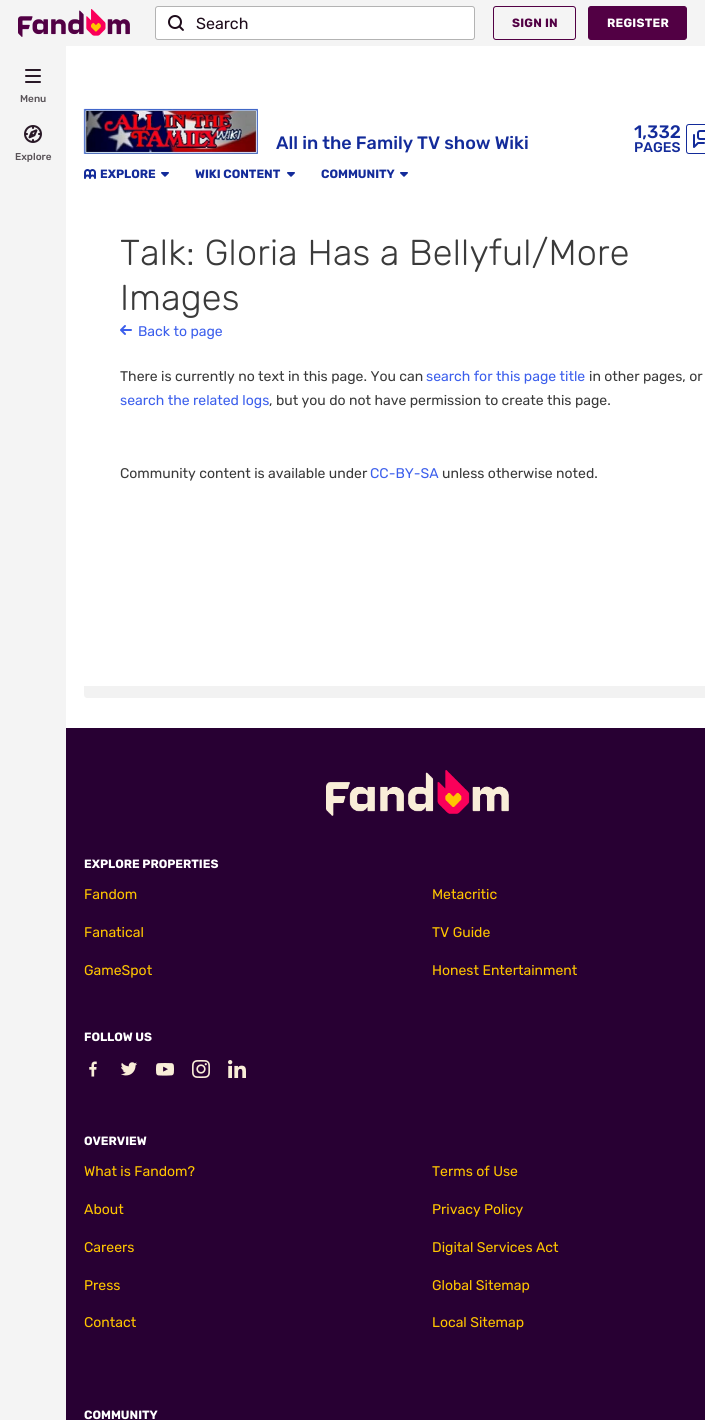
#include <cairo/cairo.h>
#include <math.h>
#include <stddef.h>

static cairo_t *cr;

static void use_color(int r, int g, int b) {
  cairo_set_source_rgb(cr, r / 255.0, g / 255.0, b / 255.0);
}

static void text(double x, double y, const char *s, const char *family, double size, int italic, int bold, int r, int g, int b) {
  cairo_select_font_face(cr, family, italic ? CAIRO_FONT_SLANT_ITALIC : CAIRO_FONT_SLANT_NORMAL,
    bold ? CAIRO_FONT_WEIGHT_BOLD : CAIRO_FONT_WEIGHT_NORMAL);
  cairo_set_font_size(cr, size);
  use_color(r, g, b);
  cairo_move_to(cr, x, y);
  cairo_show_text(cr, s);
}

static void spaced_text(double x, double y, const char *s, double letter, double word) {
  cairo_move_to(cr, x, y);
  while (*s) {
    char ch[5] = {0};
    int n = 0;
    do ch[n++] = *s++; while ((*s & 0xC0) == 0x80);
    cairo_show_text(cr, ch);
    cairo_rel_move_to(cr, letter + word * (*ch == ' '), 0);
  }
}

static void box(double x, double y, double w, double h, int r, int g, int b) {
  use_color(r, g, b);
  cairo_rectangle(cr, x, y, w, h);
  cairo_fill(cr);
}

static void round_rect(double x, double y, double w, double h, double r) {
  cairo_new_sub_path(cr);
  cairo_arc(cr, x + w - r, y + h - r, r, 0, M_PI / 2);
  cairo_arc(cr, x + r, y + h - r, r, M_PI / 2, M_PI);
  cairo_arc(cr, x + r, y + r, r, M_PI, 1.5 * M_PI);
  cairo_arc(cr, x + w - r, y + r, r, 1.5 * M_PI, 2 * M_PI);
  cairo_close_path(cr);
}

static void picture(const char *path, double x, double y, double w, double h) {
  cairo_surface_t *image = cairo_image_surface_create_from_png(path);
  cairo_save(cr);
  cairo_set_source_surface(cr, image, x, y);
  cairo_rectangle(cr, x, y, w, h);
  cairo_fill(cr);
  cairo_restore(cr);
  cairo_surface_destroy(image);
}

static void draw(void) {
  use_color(255, 255, 255);
  cairo_paint(cr);
  box(0, 0, 705, 46, 244, 244, 244);
  picture("img_01.png", 18, 9, 112, 28);
  use_color(255, 255, 255);
  round_rect(155.5, 6.5, 319, 33, 2.5);
  cairo_fill_preserve(cr);
  use_color(179, 179, 179);
  cairo_set_line_width(cr, 1);
  cairo_stroke(cr);
  picture("img_02.png", 168, 15, 16, 16);
  round_rect(493.5, 6.5, 82, 33, 2.5);
  use_color(82, 0, 68);
  cairo_stroke(cr);
  round_rect(588.5, 6.5, 98, 33, 2.5);
  cairo_fill_preserve(cr);
  cairo_stroke(cr);
  box(0, 46, 66, 1374, 244, 244, 244);
  picture("img_03.png", 25, 69, 16, 14);
  picture("img_04.png", 24, 125, 18, 18);
  picture("img_05.png", 83, 108, 175, 46);
  cairo_new_path(cr);
  cairo_move_to(cr, 689, 124.5);
  cairo_line_to(cr, 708.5, 124.5);
  cairo_line_to(cr, 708.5, 153.5);
  cairo_line_to(cr, 689, 153.5);
  cairo_curve_to(cr, 687.5, 153.5, 686.5, 152.5, 686.5, 151);
  cairo_line_to(cr, 686.5, 127);
  cairo_curve_to(cr, 686.5, 125.5, 687.5, 124.5, 689, 124.5);
  cairo_close_path(cr);
  use_color(19, 43, 154);
  cairo_stroke(cr);
  picture("img_06.png", 693, 130, 12, 18);
  picture("img_07.png", 84, 169, 12, 10);
  picture("img_08.png", 161, 172, 8, 5);
  picture("img_08.png", 287, 172, 8, 5);
  picture("img_08.png", 400, 172, 8, 5);
  picture("img_09.png", 120, 325, 12, 10);
  use_color(242, 242, 242);
  cairo_new_path(cr);
  cairo_move_to(cr, 84, 686);
  cairo_line_to(cr, 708, 686);
  cairo_line_to(cr, 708, 695);
  cairo_curve_to(cr, 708, 696.5, 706.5, 698, 705, 698);
  cairo_line_to(cr, 87, 698);
  cairo_curve_to(cr, 85.5, 698, 84, 696.5, 84, 695);
  cairo_close_path(cr);
  cairo_fill(cr);
  box(66, 728, 639, 692, 40, 0, 51);
  picture("img_10.png", 326, 770, 183, 46);
  picture("img_11.png", 89, 1061, 8, 16);
  picture("img_12.png", 121, 1062, 17, 14);
  picture("img_13.png", 156, 1063, 18, 13);
  picture("img_14.png", 192, 1060, 18, 18);
  picture("img_15.png", 228, 1060, 18, 18);
  text(196, 29, "Search", "Rubik", 16, 0, 0, 30, 12, 27);
  cairo_select_font_face(cr, "Rubik", CAIRO_FONT_SLANT_NORMAL, CAIRO_FONT_WEIGHT_BOLD);
  cairo_set_font_size(cr, 12);
  use_color(82, 0, 68);
  spaced_text(512, 27, "SIGN IN", 0.25, 0);
  use_color(255, 255, 255);
  spaced_text(607, 27, "REGISTER", 0.25, 0);
  text(20, 102, "Menu", "Rubik Medium", 10, 0, 0, 89, 83, 88);
  text(15, 160, "Explore", "Rubik Medium", 10, 0, 0, 89, 83, 88);
  text(276, 149, "All in the Family TV show Wiki", "Rubik Medium", 18, 0, 0, 19, 43, 154);
  text(634, 138, "1,332", "Rubik Medium", 18, 0, 0, 19, 43, 154);
  text(634, 152, "PAGES", "Rubik Medium", 14, 0, 0, 19, 43, 154);
  text(100, 178, "EXPLORE", "Rubik", 12, 0, 1, 19, 43, 154);
  text(195, 178, "WIKI CONTENT", "Rubik", 12, 0, 1, 19, 43, 154);
  text(321, 178, "COMMUNITY", "Rubik", 12, 0, 1, 19, 43, 154);
  cairo_select_font_face(cr, "Rubik Light", CAIRO_FONT_SLANT_NORMAL, CAIRO_FONT_WEIGHT_NORMAL);
  cairo_set_font_size(cr, 36);
  use_color(58, 58, 58);
  spaced_text(120, 265, "Talk: Gloria Has a Bellyful/More", 0.25, 0);
  spaced_text(120, 310, "Images", 0.25, 0);
  text(138, 336, "Back to page", "Rubik", 14, 0, 0, 60, 95, 236);
  text(120, 381, "There is currently no text in this page. You can", "Rubik", 14, 0, 0, 58, 58, 58);
  text(426, 381, "search for this page title", "Rubik", 14, 0, 0, 60, 95, 236);
  text(589, 381, "in other pages, or", "Rubik", 14, 0, 0, 58, 58, 58);
  text(120, 405, "search the related logs", "Rubik", 14, 0, 0, 60, 95, 236);
  text(269, 405, ", but you do not have permission to create this page.", "Rubik", 14, 0, 0, 58, 58, 58);
  text(120, 478, "Community content is available under", "Rubik", 14, 0, 0, 58, 58, 58);
  text(370, 478, "CC-BY-SA", "Rubik", 14, 0, 0, 60, 95, 236);
  text(442, 478, "unless otherwise noted.", "Rubik", 14, 0, 0, 58, 58, 58);
  text(84, 868, "EXPLORE PROPERTIES", "Rubik", 12, 0, 1, 255, 255, 255);
  text(84, 899, "Fandom", "Rubik", 14, 0, 0, 255, 197, 0);
  text(432, 899, "Metacritic", "Rubik", 14, 0, 0, 255, 197, 0);
  text(84, 937, "Fanatical", "Rubik", 14, 0, 0, 255, 197, 0);
  text(432, 937, "TV Guide", "Rubik", 14, 0, 0, 255, 197, 0);
  text(84, 975, "GameSpot", "Rubik", 14, 0, 0, 255, 197, 0);
  text(432, 975, "Honest Entertainment", "Rubik", 14, 0, 0, 255, 197, 0);
  text(84, 1041, "FOLLOW US", "Rubik", 12, 0, 1, 255, 255, 255);
  text(84, 1145, "OVERVIEW", "Rubik", 12, 0, 1, 255, 255, 255);
  text(84, 1176, "What is Fandom?", "Rubik", 14, 0, 0, 255, 197, 0);
  text(432, 1176, "Terms of Use", "Rubik", 14, 0, 0, 255, 197, 0);
  text(84, 1214, "About", "Rubik", 14, 0, 0, 255, 197, 0);
  text(432, 1214, "Privacy Policy", "Rubik", 14, 0, 0, 255, 197, 0);
  text(84, 1252, "Careers", "Rubik", 14, 0, 0, 255, 197, 0);
  text(432, 1252, "Digital Services Act", "Rubik", 14, 0, 0, 255, 197, 0);
  text(84, 1290, "Press", "Rubik", 14, 0, 0, 255, 197, 0);
  text(432, 1290, "Global Sitemap", "Rubik", 14, 0, 0, 255, 197, 0);
  text(84, 1327, "Contact", "Rubik", 14, 0, 0, 255, 197, 0);
  text(432, 1327, "Local Sitemap", "Rubik", 14, 0, 0, 255, 197, 0);
  text(84, 1419, "COMMUNITY", "Rubik", 12, 0, 1, 255, 255, 255);
}

int main(void) {
  cairo_surface_t *surface = cairo_image_surface_create(CAIRO_FORMAT_RGB24, 705, 1420);
  cr = cairo_create(surface);
  cairo_font_options_t *options = cairo_font_options_create();
  cairo_font_options_set_hint_metrics(options, CAIRO_HINT_METRICS_OFF);
  cairo_font_options_set_hint_style(options, CAIRO_HINT_STYLE_NONE);
  cairo_set_font_options(cr, options);
  cairo_set_miter_limit(cr, 4);
  draw();
  cairo_surface_write_to_png(surface, "out.png");
  cairo_font_options_destroy(options);
  cairo_destroy(cr);
  cairo_surface_destroy(surface);
  return 0;
}
